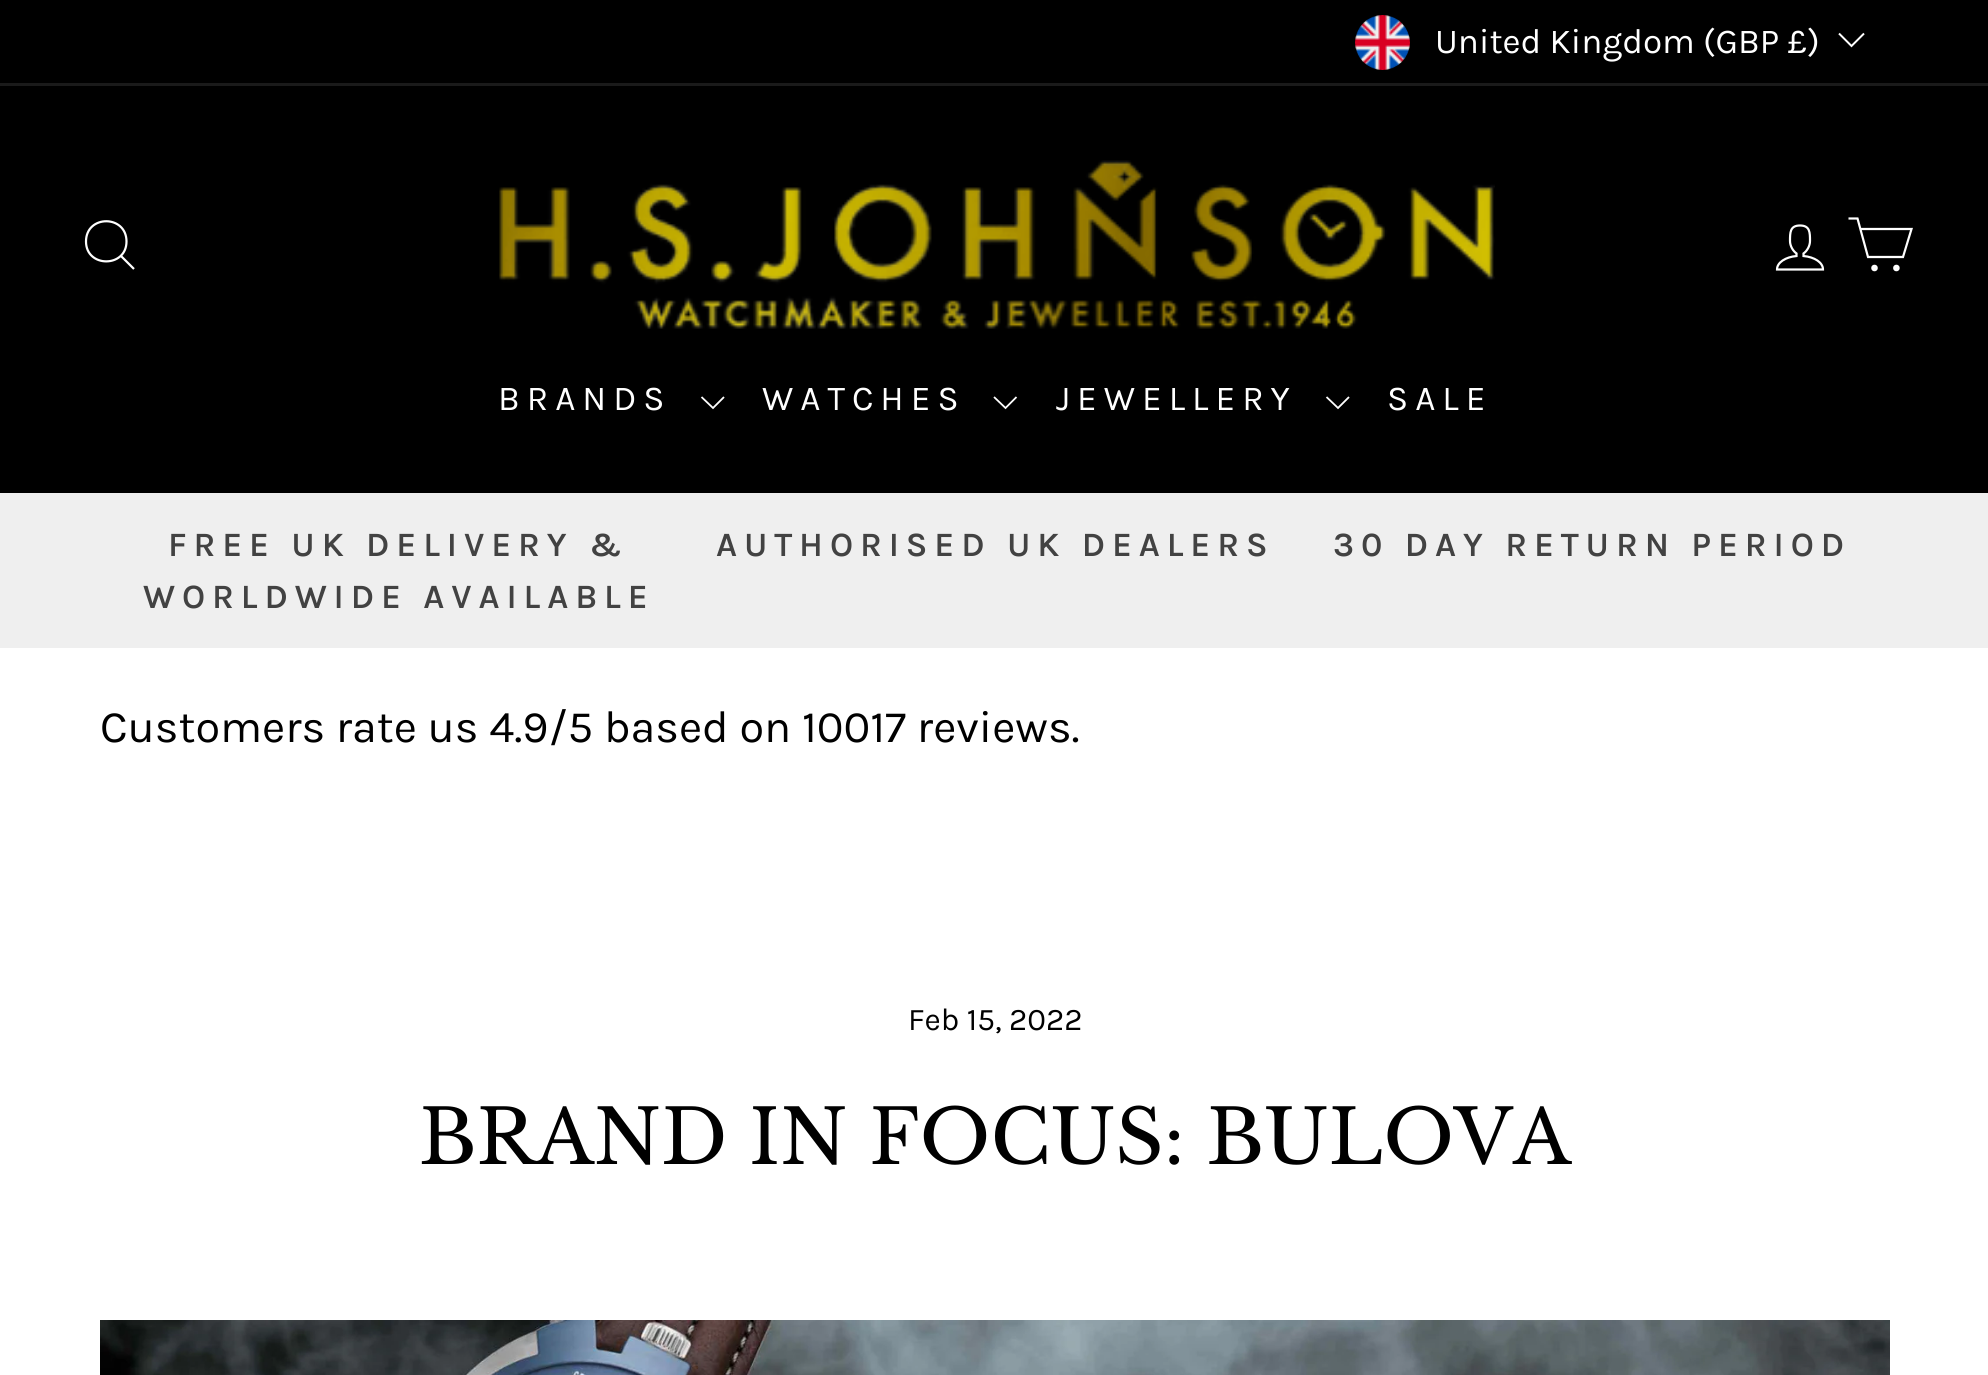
#include <cairo/cairo.h>
#include <math.h>
#include <stddef.h>

static cairo_t *cr;

static void use_color(int r, int g, int b) {
  cairo_set_source_rgb(cr, r / 255.0, g / 255.0, b / 255.0);
}

static void text(double x, double y, const char *s, const char *family, double size, int italic, int bold, int r, int g, int b) {
  cairo_select_font_face(cr, family, italic ? CAIRO_FONT_SLANT_ITALIC : CAIRO_FONT_SLANT_NORMAL,
    bold ? CAIRO_FONT_WEIGHT_BOLD : CAIRO_FONT_WEIGHT_NORMAL);
  cairo_set_font_size(cr, size);
  use_color(r, g, b);
  cairo_move_to(cr, x, y);
  cairo_show_text(cr, s);
}

static void spaced_text(double x, double y, const char *s, double letter, double word) {
  cairo_move_to(cr, x, y);
  while (*s) {
    char ch[5] = {0};
    int n = 0;
    do ch[n++] = *s++; while ((*s & 0xC0) == 0x80);
    cairo_show_text(cr, ch);
    cairo_rel_move_to(cr, letter + word * (*ch == ' '), 0);
  }
}

static void box(double x, double y, double w, double h, int r, int g, int b) {
  use_color(r, g, b);
  cairo_rectangle(cr, x, y, w, h);
  cairo_fill(cr);
}

static void picture(const char *path, double x, double y, double w, double h) {
  cairo_surface_t *image = cairo_image_surface_create_from_png(path);
  cairo_save(cr);
  cairo_set_source_surface(cr, image, x, y);
  cairo_rectangle(cr, x, y, w, h);
  cairo_fill(cr);
  cairo_restore(cr);
  cairo_surface_destroy(image);
}

static void draw(void) {
  use_color(255, 255, 255);
  cairo_paint(cr);
  box(0, 0, 1988, 83, 0, 0, 0);
  picture("img_01.png", 1355, 15, 55, 55);
  cairo_new_path(cr);
  cairo_move_to(cr, 1839, 33.5);
  cairo_line_to(cr, 1851.5, 46);
  cairo_line_to(cr, 1864, 33.5);
  use_color(255, 255, 255);
  cairo_stroke(cr);
  box(0, 86, 1988, 407, 0, 0, 0);
  box(0, 83, 1988, 3, 26, 26, 26);
  cairo_new_path(cr);
  cairo_move_to(cr, 126.5, 241.5);
  cairo_curve_to(cr, 126.5, 268, 86, 268, 86, 241.5);
  cairo_curve_to(cr, 86, 214.5, 126.5, 214.5, 126.5, 241.5);
  cairo_close_path(cr);
  cairo_move_to(cr, 134, 269);
  cairo_line_to(cr, 121, 256);
  use_color(255, 255, 255);
  cairo_set_line_width(cr, 2.2);
  cairo_stroke(cr);
  picture("img_02.png", 499, 160, 996, 169);
  cairo_new_path(cr);
  cairo_move_to(cr, 1803.5, 256);
  cairo_line_to(cr, 1803.5, 253.5);
  cairo_curve_to(cr, 1807, 251, 1810, 246, 1810, 241);
  cairo_curve_to(cr, 1810, 232.5, 1810, 225.5, 1800, 225.5);
  cairo_curve_to(cr, 1790, 225.5, 1790, 232.5, 1790, 241);
  cairo_curve_to(cr, 1790, 246, 1793, 251, 1796.5, 253.5);
  cairo_line_to(cr, 1796.5, 256);
  cairo_curve_to(cr, 1785.5, 257, 1777, 262.5, 1777, 269.5);
  cairo_line_to(cr, 1823, 269.5);
  cairo_curve_to(cr, 1823, 262.5, 1814.5, 257, 1803.5, 256);
  cairo_close_path(cr);
  cairo_stroke(cr);
  cairo_new_path(cr);
  cairo_move_to(cr, 1860.5, 229);
  cairo_line_to(cr, 1911.5, 229);
  cairo_line_to(cr, 1903, 257);
  cairo_line_to(cr, 1868, 257);
  cairo_line_to(cr, 1857.5, 218.5);
  cairo_line_to(cr, 1848.5, 218.5);
  cairo_stroke(cr);
  cairo_arc(cr, 1874.5, 268, 2.2, 0, 2 * M_PI);
  cairo_fill_preserve(cr);
  cairo_stroke(cr);
  cairo_arc(cr, 1896.4, 268, 2.2, 0, 2 * M_PI);
  cairo_fill_preserve(cr);
  cairo_stroke(cr);
  cairo_new_path(cr);
  cairo_move_to(cr, 701.5, 397);
  cairo_line_to(cr, 713, 408);
  cairo_line_to(cr, 724, 397);
  cairo_set_line_width(cr, 1.8);
  cairo_stroke(cr);
  cairo_new_path(cr);
  cairo_move_to(cr, 994, 397);
  cairo_line_to(cr, 1005.5, 408);
  cairo_line_to(cr, 1016.5, 397);
  cairo_stroke(cr);
  cairo_new_path(cr);
  cairo_move_to(cr, 1326.5, 397);
  cairo_line_to(cr, 1338, 408);
  cairo_line_to(cr, 1349, 397);
  cairo_stroke(cr);
  box(0, 493, 1988, 155, 239, 239, 239);
  picture("img_03.png", 100, 1320, 1790, 55);
  text(1435, 53, "United Kingdom (GBP £)", "Karla", 35, 0, 0, 255, 255, 255);
  spaced_text(498, 410, "BRANDS", 7, 0);
  spaced_text(762, 410, "WATCHES", 7, 0);
  spaced_text(1056, 410, "JEWELLERY", 7, 0);
  spaced_text(1387, 410, "SALE", 7, 0);
  cairo_select_font_face(cr, "Karla SemiBold", CAIRO_FONT_SLANT_NORMAL, CAIRO_FONT_WEIGHT_NORMAL);
  cairo_set_font_size(cr, 34.4);
  use_color(66, 66, 66);
  spaced_text(168, 556, "FREE UK DELIVERY &", 6.9, 0);
  spaced_text(143, 608, "WORLDWIDE AVAILABLE", 6.9, 0);
  spaced_text(716, 556, "AUTHORISED UK DEALERS", 6.9, 0);
  spaced_text(1333, 556, "30 DAY RETURN PERIOD", 6.9, 0);
  text(100, 742, "Customers rate us 4.9/5 based on 10017 reviews.", "Karla", 45, 0, 0, 0, 0, 0);
  text(908, 1030, "Feb 15, 2022", "Karla", 31.5, 0, 0, 0, 0, 0);
  text(419, 1164, "BRAND IN FOCUS: BULOVA", "Libre Baskerville", 75, 0, 0, 0, 0, 0);
}

int main(void) {
  cairo_surface_t *surface = cairo_image_surface_create(CAIRO_FORMAT_RGB24, 1988, 1375);
  cr = cairo_create(surface);
  cairo_font_options_t *options = cairo_font_options_create();
  cairo_font_options_set_hint_metrics(options, CAIRO_HINT_METRICS_OFF);
  cairo_font_options_set_hint_style(options, CAIRO_HINT_STYLE_NONE);
  cairo_set_font_options(cr, options);
  cairo_set_miter_limit(cr, 4);
  draw();
  cairo_surface_write_to_png(surface, "out.png");
  cairo_font_options_destroy(options);
  cairo_destroy(cr);
  cairo_surface_destroy(surface);
  return 0;
}
